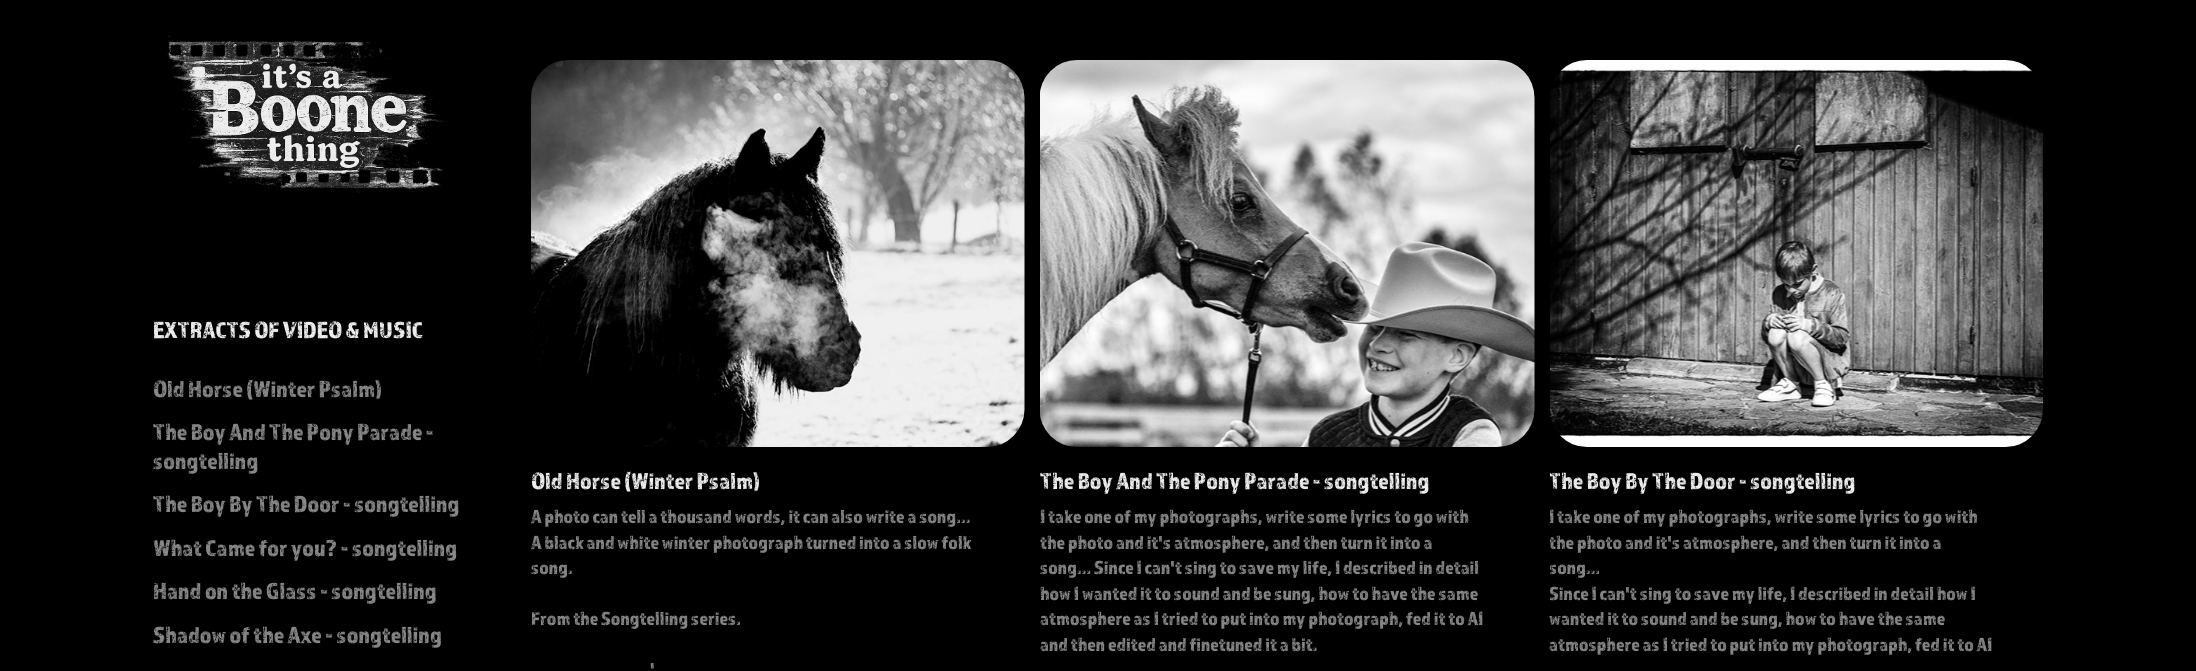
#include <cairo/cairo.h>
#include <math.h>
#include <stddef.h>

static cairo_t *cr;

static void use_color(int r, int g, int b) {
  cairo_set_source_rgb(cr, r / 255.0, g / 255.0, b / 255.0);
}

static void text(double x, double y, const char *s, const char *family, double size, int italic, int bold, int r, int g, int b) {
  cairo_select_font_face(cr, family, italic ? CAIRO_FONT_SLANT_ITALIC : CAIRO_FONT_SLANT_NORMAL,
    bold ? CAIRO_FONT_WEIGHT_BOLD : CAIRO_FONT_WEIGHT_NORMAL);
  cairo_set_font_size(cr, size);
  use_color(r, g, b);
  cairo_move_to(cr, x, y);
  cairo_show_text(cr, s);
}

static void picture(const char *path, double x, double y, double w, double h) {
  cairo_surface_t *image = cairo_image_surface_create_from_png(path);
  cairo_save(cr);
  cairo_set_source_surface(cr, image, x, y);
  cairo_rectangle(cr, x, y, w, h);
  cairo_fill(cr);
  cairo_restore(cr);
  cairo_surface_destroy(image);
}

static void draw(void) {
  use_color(0, 0, 0);
  cairo_paint(cr);
  picture("img_01.png", 167, 35, 281, 159);
  picture("img_02.png", 531, 60, 494, 387);
  picture("img_03.png", 1040, 60, 495, 387);
  picture("img_04.png", 1550, 60, 493, 387);
  text(153, 338, "EXTRACTS OF VIDEO & MUSIC", "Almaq", 24, 0, 0, 238, 238, 238);
  text(153, 397, "Old Horse (Winter Psalm)", "Almaq", 24, 0, 0, 136, 136, 136);
  text(153, 440, "The Boy And The Pony Parade -", "Almaq", 24, 0, 0, 136, 136, 136);
  text(153, 469, "songtelling", "Almaq", 24, 0, 0, 136, 136, 136);
  text(153, 512, "The Boy By The Door - songtelling", "Almaq", 24, 0, 0, 136, 136, 136);
  text(153, 556, "What Came for you? - songtelling", "Almaq", 24, 0, 0, 136, 136, 136);
  text(153, 599, "Hand on the Glass - songtelling", "Almaq", 24, 0, 0, 136, 136, 136);
  text(153, 643, "Shadow of the Axe - songtelling", "Almaq", 24, 0, 0, 136, 136, 136);
  text(531, 489, "Old Horse (Winter Psalm)", "Almaq", 24, 0, 0, 238, 238, 238);
  text(531, 523, "A photo can tell a thousand words, it can also write a song...", "Almaq", 19.5, 0, 0, 136, 136, 136);
  text(531, 549, "A black and white winter photograph turned into a slow folk", "Almaq", 19.5, 0, 0, 136, 136, 136);
  text(531, 574, "song.", "Almaq", 19.5, 0, 0, 136, 136, 136);
  text(531, 625, "From the Songtelling series.", "Almaq", 19.5, 0, 0, 136, 136, 136);
  text(650, 676, "'", "Almaq", 19.5, 0, 0, 136, 136, 136);
  text(1040, 489, "The Boy And The Pony Parade - songtelling", "Almaq", 24, 0, 0, 238, 238, 238);
  text(1040, 523, "I take one of my photographs, write some lyrics to go with", "Almaq", 19.5, 0, 0, 136, 136, 136);
  text(1040, 549, "the photo and it's atmosphere, and then turn it into a", "Almaq", 19.5, 0, 0, 136, 136, 136);
  text(1040, 574, "song... Since I can't sing to save my life, I described in detail", "Almaq", 19.5, 0, 0, 136, 136, 136);
  text(1040, 600, "how I wanted it to sound and be sung, how to have the same", "Almaq", 19.5, 0, 0, 136, 136, 136);
  text(1040, 625, "atmosphere as I tried to put into my photograph, fed it to AI", "Almaq", 19.5, 0, 0, 136, 136, 136);
  text(1040, 651, "and then edited and finetuned it a bit.", "Almaq", 19.5, 0, 0, 136, 136, 136);
  cairo_save(cr);
  cairo_rectangle(cr, 1550, 467, 493, 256);
  cairo_clip(cr);
  text(1549, 489, "The Boy By The Door - songtelling", "Almaq", 24, 0, 0, 238, 238, 238);
  text(1549, 523, "I take one of my photographs, write some lyrics to go with", "Almaq", 19.5, 0, 0, 136, 136, 136);
  text(1549, 549, "the photo and it's atmosphere, and then turn it into a", "Almaq", 19.5, 0, 0, 136, 136, 136);
  text(1549, 574, "song...", "Almaq", 19.5, 0, 0, 136, 136, 136);
  text(1549, 600, "Since I can't sing to save my life, I described in detail how I", "Almaq", 19.5, 0, 0, 136, 136, 136);
  cairo_restore(cr);
  text(1549, 625, "wanted it to sound and be sung, how to have the same", "Almaq", 19.5, 0, 0, 136, 136, 136);
  text(1549, 651, "atmosphere as I tried to put into my photograph, fed it to AI", "Almaq", 19.5, 0, 0, 136, 136, 136);
}

int main(void) {
  cairo_surface_t *surface = cairo_image_surface_create(CAIRO_FORMAT_RGB24, 2196, 671);
  cr = cairo_create(surface);
  cairo_font_options_t *options = cairo_font_options_create();
  cairo_font_options_set_hint_metrics(options, CAIRO_HINT_METRICS_OFF);
  cairo_font_options_set_hint_style(options, CAIRO_HINT_STYLE_NONE);
  cairo_set_font_options(cr, options);
  cairo_set_miter_limit(cr, 4);
  draw();
  cairo_surface_write_to_png(surface, "out.png");
  cairo_font_options_destroy(options);
  cairo_destroy(cr);
  cairo_surface_destroy(surface);
  return 0;
}
